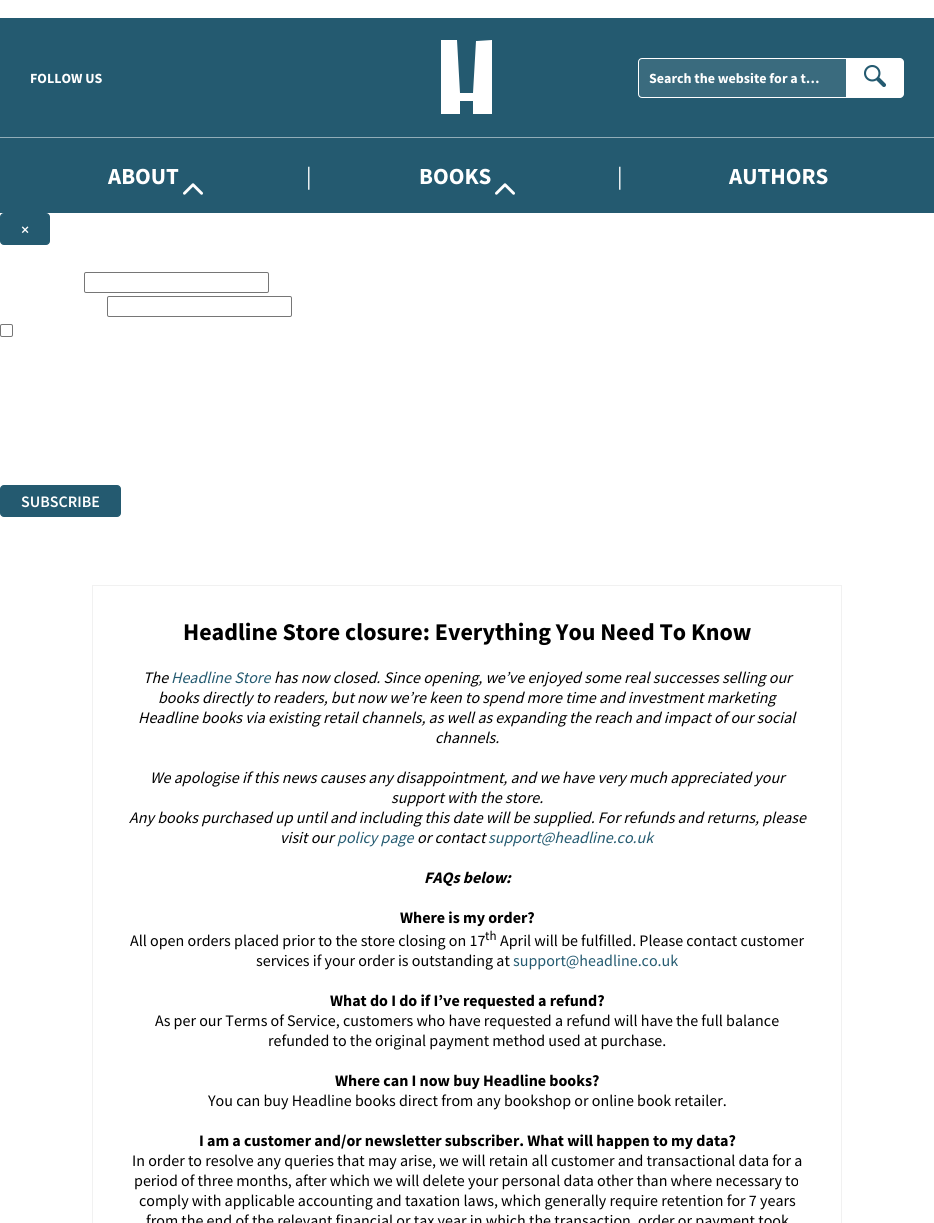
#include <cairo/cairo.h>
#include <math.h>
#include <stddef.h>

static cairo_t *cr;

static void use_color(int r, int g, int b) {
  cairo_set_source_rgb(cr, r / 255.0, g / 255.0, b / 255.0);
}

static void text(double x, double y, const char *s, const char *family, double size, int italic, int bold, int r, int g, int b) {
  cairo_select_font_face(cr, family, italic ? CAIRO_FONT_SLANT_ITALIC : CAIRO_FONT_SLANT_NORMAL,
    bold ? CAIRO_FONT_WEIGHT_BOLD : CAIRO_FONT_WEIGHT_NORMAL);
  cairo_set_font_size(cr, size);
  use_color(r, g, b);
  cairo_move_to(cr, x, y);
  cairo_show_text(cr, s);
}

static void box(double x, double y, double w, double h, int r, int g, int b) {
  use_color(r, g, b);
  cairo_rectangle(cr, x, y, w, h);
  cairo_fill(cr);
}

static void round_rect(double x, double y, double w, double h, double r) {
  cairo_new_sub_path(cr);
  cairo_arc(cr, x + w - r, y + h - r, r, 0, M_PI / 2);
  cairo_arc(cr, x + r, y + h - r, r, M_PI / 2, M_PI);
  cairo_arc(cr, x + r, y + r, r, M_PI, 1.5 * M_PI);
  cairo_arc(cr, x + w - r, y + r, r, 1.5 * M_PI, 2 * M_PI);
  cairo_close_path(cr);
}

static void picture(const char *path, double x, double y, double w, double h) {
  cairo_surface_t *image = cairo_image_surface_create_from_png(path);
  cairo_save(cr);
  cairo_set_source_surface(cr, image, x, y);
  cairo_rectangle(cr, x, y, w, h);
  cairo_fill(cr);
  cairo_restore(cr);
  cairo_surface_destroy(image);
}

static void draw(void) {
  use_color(255, 255, 255);
  cairo_paint(cr);
  box(0, 18, 934, 119, 36, 90, 112);
  box(0, 137, 934, 1, 146, 173, 184);
  use_color(255, 255, 255);
  cairo_new_path(cr);
  cairo_move_to(cr, 441, 77);
  cairo_line_to(cr, 441, 40);
  cairo_line_to(cr, 457, 40);
  cairo_line_to(cr, 460, 93);
  cairo_line_to(cr, 473, 93);
  cairo_line_to(cr, 476, 41);
  cairo_line_to(cr, 492, 40);
  cairo_line_to(cr, 492, 114);
  cairo_line_to(cr, 473, 114);
  cairo_line_to(cr, 473, 101);
  cairo_line_to(cr, 460, 101);
  cairo_line_to(cr, 460, 114);
  cairo_line_to(cr, 441, 114);
  cairo_close_path(cr);
  cairo_fill(cr);
  use_color(58, 107, 126);
  cairo_new_path(cr);
  cairo_move_to(cr, 642, 58.5);
  cairo_line_to(cr, 846.5, 58.5);
  cairo_line_to(cr, 846.5, 97.5);
  cairo_line_to(cr, 642, 97.5);
  cairo_curve_to(cr, 640, 97.5, 638.5, 96, 638.5, 94);
  cairo_line_to(cr, 638.5, 62);
  cairo_curve_to(cr, 638.5, 60, 640, 58.5, 642, 58.5);
  cairo_close_path(cr);
  cairo_fill_preserve(cr);
  use_color(255, 255, 255);
  cairo_set_line_width(cr, 1);
  cairo_stroke(cr);
  cairo_new_path(cr);
  cairo_move_to(cr, 847, 58);
  cairo_line_to(cr, 900, 58);
  cairo_curve_to(cr, 902, 58, 904, 60, 904, 62);
  cairo_line_to(cr, 904, 94);
  cairo_curve_to(cr, 904, 96, 902, 98, 900, 98);
  cairo_line_to(cr, 847, 98);
  cairo_close_path(cr);
  cairo_fill(cr);
  picture("img_01.png", 864, 65, 22, 22);
  box(0, 138, 934, 75, 36, 90, 112);
  picture("img_02.png", 183, 183, 20, 12);
  picture("img_02.png", 495, 183, 20, 12);
  round_rect(0.5, 213.5, 49, 31, 3.5);
  cairo_fill_preserve(cr);
  cairo_stroke(cr);
  round_rect(84.5, 272.5, 184, 20, 1.5);
  use_color(118, 118, 118);
  cairo_stroke(cr);
  round_rect(107.5, 296.5, 184, 20, 1.5);
  cairo_stroke(cr);
  round_rect(0.5, 324.5, 12, 12, 1.5);
  cairo_stroke(cr);
  use_color(36, 90, 112);
  round_rect(0.5, 485.5, 120, 31, 3.5);
  cairo_fill_preserve(cr);
  cairo_stroke(cr);
  cairo_rectangle(cr, 92.5, 585.5, 749, 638);
  use_color(241, 241, 241);
  cairo_stroke(cr);
  text(30, 83, "FOLLOW US", "Source Sans Pro", 14, 0, 1, 255, 255, 255);
  text(649, 83, "Search the website for a t…", "Source Sans Pro", 14, 0, 1, 255, 255, 255);
  text(108, 184, "ABOUT", "Source Sans Pro", 23, 0, 1, 255, 255, 255);
  text(306, 184, "|", "Source Sans Pro", 23, 0, 0, 255, 255, 255);
  text(419, 184, "BOOKS", "Source Sans Pro", 23, 0, 1, 255, 255, 255);
  text(617, 184, "|", "Source Sans Pro", 23, 0, 0, 255, 255, 255);
  text(729, 184, "AUTHORS", "Source Sans Pro", 23, 0, 1, 255, 255, 255);
  text(21, 235, "×", "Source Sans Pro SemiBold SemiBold", 16, 0, 0, 255, 255, 255);
  text(21, 507, "SUBSCRIBE", "Source Sans Pro SemiBold SemiBold", 16, 0, 0, 255, 255, 255);
  text(183, 640, "Headline Store closure: Everything You Need To Know", "Source Sans Pro", 24, 0, 1, 0, 0, 0);
  text(143, 683, "The", "Source Sans Pro", 16, 1, 0, 0, 0, 0);
  text(171, 683, "Headline Store", "Source Sans Pro", 16, 1, 0, 36, 90, 112);
  text(274, 683, "has now closed. Since opening, we’ve enjoyed some real successes selling our", "Source Sans Pro", 16, 1, 0, 0, 0, 0);
  text(158, 703, "books directly to readers, but now we’re keen to spend more time and investment marketing", "Source Sans Pro", 16, 1, 0, 0, 0, 0);
  text(138, 723, "Headline books via existing retail channels, as well as expanding the reach and impact of our social", "Source Sans Pro", 16, 1, 0, 0, 0, 0);
  text(435, 743, "channels.", "Source Sans Pro", 16, 1, 0, 0, 0, 0);
  text(150, 783, "We apologise if this news causes any disappointment, and we have very much appreciated your", "Source Sans Pro", 16, 1, 0, 0, 0, 0);
  text(391, 803, "support with the store.", "Source Sans Pro", 16, 1, 0, 0, 0, 0);
  text(129, 823, "Any books purchased up until and including this date will be supplied. For refunds and returns, please", "Source Sans Pro", 16, 1, 0, 0, 0, 0);
  text(280, 843, "visit our", "Source Sans Pro", 16, 1, 0, 0, 0, 0);
  text(337, 843, "policy page", "Source Sans Pro", 16, 1, 0, 36, 90, 112);
  text(417, 843, "or contact", "Source Sans Pro", 16, 1, 0, 0, 0, 0);
  text(488, 843, "support@headline.co.uk", "Source Sans Pro", 16, 1, 0, 36, 90, 112);
  text(424, 883, "FAQs below:", "Source Sans Pro", 16, 1, 1, 0, 0, 0);
  text(400, 923, "Where is my order?", "Source Sans Pro", 16, 0, 1, 0, 0, 0);
  text(130, 946, "All open orders placed prior to the store closing on 17", "Source Sans Pro", 16, 0, 0, 0, 0, 0);
  text(485, 940, "th", "Source Sans Pro", 13, 0, 0, 0, 0, 0);
  text(500, 946, "April will be fulfilled. Please contact customer", "Source Sans Pro", 16, 0, 0, 0, 0, 0);
  text(256, 966, "services if your order is outstanding at", "Source Sans Pro", 16, 0, 0, 0, 0, 0);
  text(513, 966, "support@headline.co.uk", "Source Sans Pro", 16, 0, 0, 36, 90, 112);
  text(330, 1006, "What do I do if I’ve requested a refund?", "Source Sans Pro", 16, 0, 1, 0, 0, 0);
  text(155, 1026, "As per our Terms of Service, customers who have requested a refund will have the full balance", "Source Sans Pro", 16, 0, 0, 0, 0, 0);
  text(268, 1046, "refunded to the original payment method used at purchase.", "Source Sans Pro", 16, 0, 0, 0, 0, 0);
  text(335, 1086, "Where can I now buy Headline books?", "Source Sans Pro", 16, 0, 1, 0, 0, 0);
  text(208, 1106, "You can buy Headline books direct from any bookshop or online book retailer.", "Source Sans Pro", 16, 0, 0, 0, 0, 0);
  text(199, 1146, "I am a customer and/or newsletter subscriber. What will happen to my data?", "Source Sans Pro", 16, 0, 1, 0, 0, 0);
  text(132, 1166, "In order to resolve any queries that may arise, we will retain all customer and transactional data for a", "Source Sans Pro", 16, 0, 0, 0, 0, 0);
  text(134, 1186, "period of three months, after which we will delete your personal data other than where necessary to", "Source Sans Pro", 16, 0, 0, 0, 0, 0);
  text(139, 1206, "comply with applicable accounting and taxation laws, which generally require retention for 7 years", "Source Sans Pro", 16, 0, 0, 0, 0, 0);
  text(146, 1226, "from the end of the relevant financial or tax year in which the transaction, order or payment took", "Source Sans Pro", 16, 0, 0, 0, 0, 0);
}

int main(void) {
  cairo_surface_t *surface = cairo_image_surface_create(CAIRO_FORMAT_RGB24, 934, 1223);
  cr = cairo_create(surface);
  cairo_font_options_t *options = cairo_font_options_create();
  cairo_font_options_set_hint_metrics(options, CAIRO_HINT_METRICS_OFF);
  cairo_font_options_set_hint_style(options, CAIRO_HINT_STYLE_NONE);
  cairo_set_font_options(cr, options);
  cairo_set_miter_limit(cr, 4);
  draw();
  cairo_surface_write_to_png(surface, "out.png");
  cairo_font_options_destroy(options);
  cairo_destroy(cr);
  cairo_surface_destroy(surface);
  return 0;
}
